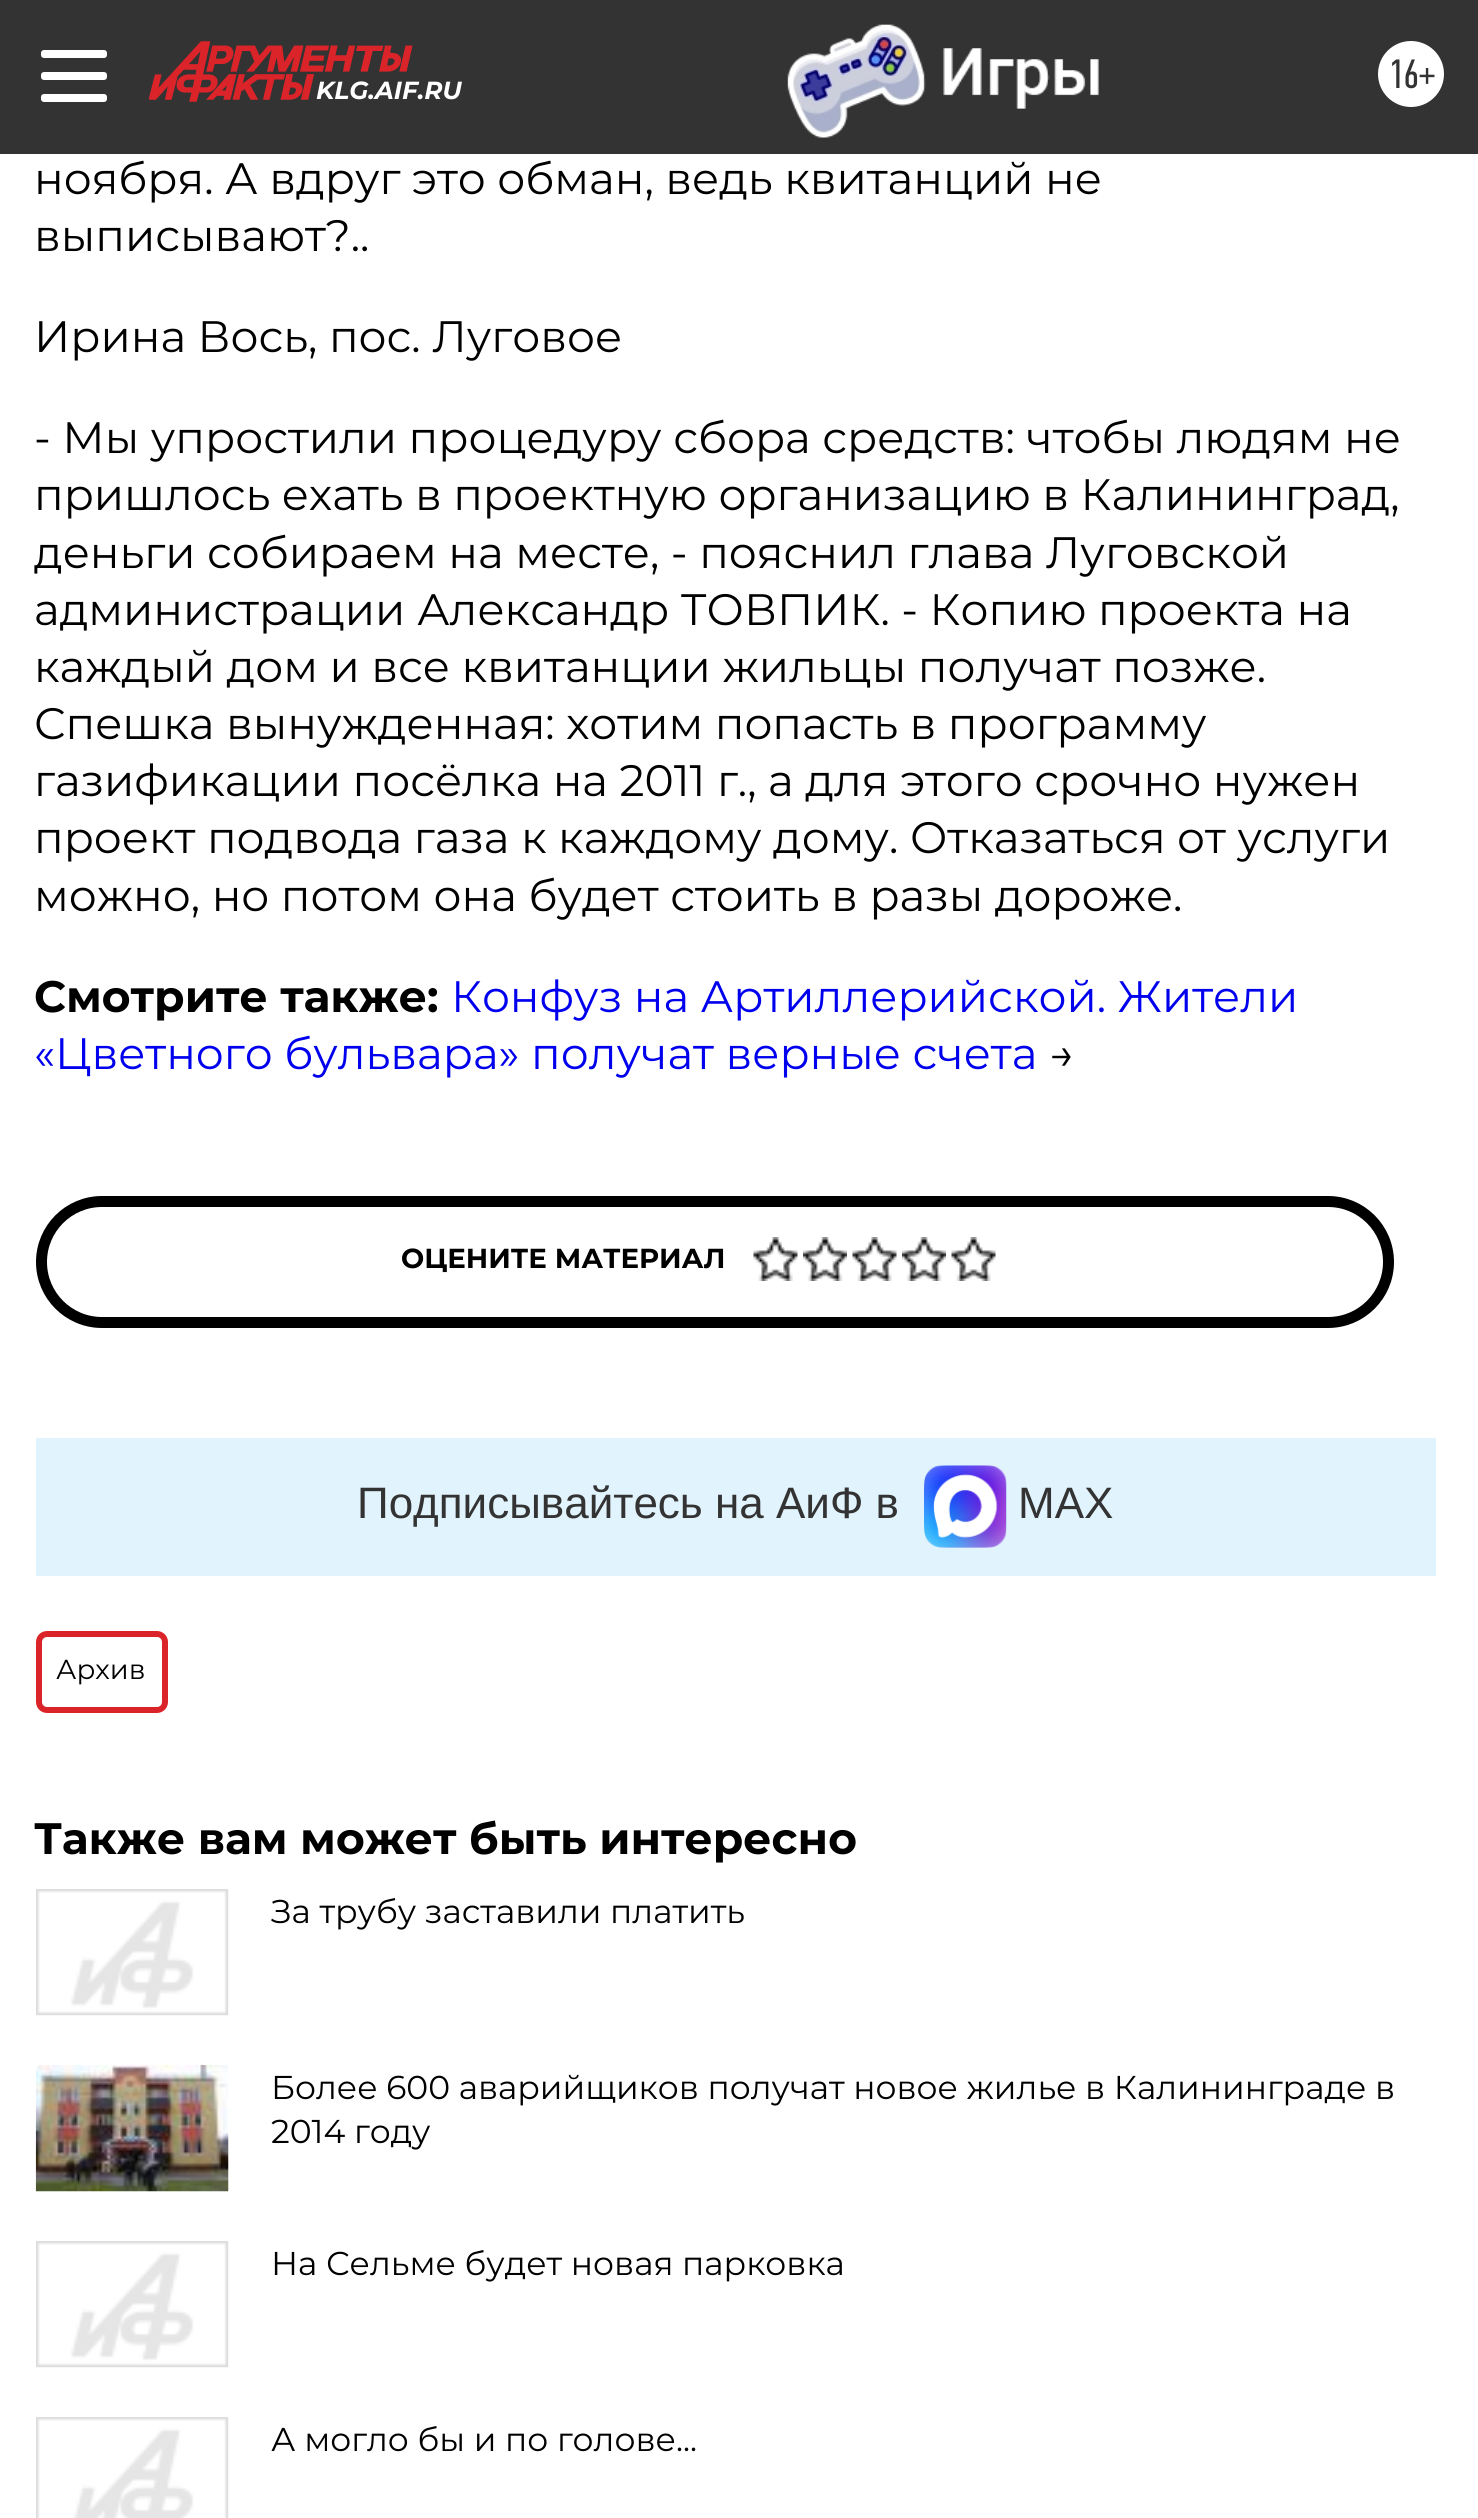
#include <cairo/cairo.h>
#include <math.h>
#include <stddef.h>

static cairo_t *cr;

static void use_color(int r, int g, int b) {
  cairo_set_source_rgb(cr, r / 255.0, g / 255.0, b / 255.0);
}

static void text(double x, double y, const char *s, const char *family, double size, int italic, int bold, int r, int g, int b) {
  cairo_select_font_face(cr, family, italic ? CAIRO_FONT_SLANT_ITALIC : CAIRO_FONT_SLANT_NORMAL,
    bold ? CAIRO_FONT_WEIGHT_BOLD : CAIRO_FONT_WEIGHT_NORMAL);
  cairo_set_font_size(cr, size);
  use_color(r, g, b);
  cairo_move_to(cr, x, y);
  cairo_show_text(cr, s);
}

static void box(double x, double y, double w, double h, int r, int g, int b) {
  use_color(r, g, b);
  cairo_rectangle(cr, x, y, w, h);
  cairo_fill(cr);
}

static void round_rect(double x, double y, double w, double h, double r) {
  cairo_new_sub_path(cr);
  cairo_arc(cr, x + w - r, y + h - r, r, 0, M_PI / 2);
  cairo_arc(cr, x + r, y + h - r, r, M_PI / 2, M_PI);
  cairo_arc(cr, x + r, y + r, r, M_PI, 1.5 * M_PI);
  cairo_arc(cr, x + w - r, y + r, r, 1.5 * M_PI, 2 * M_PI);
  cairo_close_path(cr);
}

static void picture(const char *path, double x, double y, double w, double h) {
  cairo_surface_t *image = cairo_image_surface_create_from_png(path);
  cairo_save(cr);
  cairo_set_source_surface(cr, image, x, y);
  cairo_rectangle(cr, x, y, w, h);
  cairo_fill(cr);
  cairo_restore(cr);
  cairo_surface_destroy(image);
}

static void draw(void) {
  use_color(255, 255, 255);
  cairo_paint(cr);
  box(0, 0, 1478, 154, 51, 51, 51);
  use_color(255, 255, 255);
  round_rect(41, 50, 66, 8, 3);
  cairo_fill(cr);
  round_rect(41, 72, 66, 8, 3);
  cairo_fill(cr);
  round_rect(41, 94, 66, 8, 3);
  cairo_fill(cr);
  picture("img_01.png", 149, 41, 264, 61);
  picture("img_02.png", 787, 24, 312, 114);
  cairo_arc(cr, 1411, 74, 33, 0, 2 * M_PI);
  cairo_fill(cr);
  round_rect(41.5, 1201.5, 1347, 121, 60.5);
  use_color(0, 0, 0);
  cairo_set_line_width(cr, 11);
  cairo_stroke(cr);
  picture("img_03.png", 753, 1237, 45, 44);
  picture("img_04.png", 803, 1237, 44, 44);
  picture("img_05.png", 852, 1237, 45, 44);
  picture("img_04.png", 902, 1237, 44, 44);
  picture("img_06.png", 951, 1237, 45, 44);
  box(36, 1438, 1400, 138, 225, 243, 252);
  picture("img_07.png", 924, 1465, 83, 83);
  round_rect(39, 1634, 126, 76, 8);
  use_color(218, 36, 41);
  cairo_set_line_width(cr, 6);
  cairo_stroke(cr);
  picture("img_08.png", 36, 1889, 193, 127);
  picture("img_09.png", 35, 2064, 194, 128);
  picture("img_08.png", 36, 2241, 193, 127);
  picture("img_10.png", 36, 2417, 193, 101);
  text(316, 99, "KLG.AIF.RU", "Montserrat", 24.75, 1, 1, 255, 255, 255);
  text(1388, 88, "16+", "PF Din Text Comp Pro", 41, 0, 0, 51, 51, 51);
  text(34, 194, "ноября. А вдруг это обман, ведь квитанций не", "Montserrat", 44, 0, 0, 0, 0, 0);
  text(34, 251, "выписывают?..", "Montserrat", 44, 0, 0, 0, 0, 0);
  text(34, 352, "Ирина Вось, пос. Луговое", "Montserrat", 44, 0, 0, 0, 0, 0);
  text(34, 453, "- Мы упростили процедуру сбора средств: чтобы людям не", "Montserrat", 44, 0, 0, 0, 0, 0);
  text(34, 510, "пришлось ехать в проектную организацию в Калининград,", "Montserrat", 44, 0, 0, 0, 0, 0);
  text(34, 568, "деньги собираем на месте, - пояснил глава Луговской", "Montserrat", 44, 0, 0, 0, 0, 0);
  text(34, 625, "администрации Александр ТОВПИК. - Копию проекта на", "Montserrat", 44, 0, 0, 0, 0, 0);
  text(34, 682, "каждый дом и все квитанции жильцы получат позже.", "Montserrat", 44, 0, 0, 0, 0, 0);
  text(34, 739, "Спешка вынужденная: хотим попасть в программу", "Montserrat", 44, 0, 0, 0, 0, 0);
  text(34, 796, "газификации посёлка на 2011 г., а для этого срочно нужен", "Montserrat", 44, 0, 0, 0, 0, 0);
  text(34, 853, "проект подвода газа к каждому дому. Отказаться от услуги", "Montserrat", 44, 0, 0, 0, 0, 0);
  text(34, 911, "можно, но потом она будет стоить в разы дороже.", "Montserrat", 44, 0, 0, 0, 0, 0);
  text(34, 1012, "Смотрите также:", "Montserrat", 44, 0, 1, 0, 0, 0);
  text(451, 1012, "Конфуз на Артиллерийской. Жители", "Montserrat", 44, 0, 0, 0, 0, 238);
  text(34, 1069, "«Цветного бульвара» получат верные счета", "Montserrat", 44, 0, 0, 0, 0, 238);
  text(1049, 1069, "→", "Montserrat", 44, 0, 0, 0, 0, 0);
  text(401, 1268, "ОЦЕНИТЕ МАТЕРИАЛ", "Montserrat", 27.5, 0, 1, 0, 0, 0);
  text(357, 1518, "Подписывайтесь на АиФ в", "Liberation Sans", 44, 0, 0, 51, 51, 51);
  text(1018, 1518, "MAX", "Liberation Sans", 44, 0, 0, 51, 51, 51);
  text(56, 1679, "Архив", "Montserrat", 27.5, 0, 0, 0, 0, 0);
  text(34, 1854, "Также вам может быть интересно", "Montserrat", 44, 0, 1, 0, 0, 0);
  text(271, 1923, "За трубу заставили платить", "Montserrat", 33, 0, 0, 0, 0, 0);
  text(271, 2099, "Более 600 аварийщиков получат новое жилье в Калининграде в", "Montserrat", 33, 0, 0, 0, 0, 0);
  text(271, 2143, "2014 году", "Montserrat", 33, 0, 0, 0, 0, 0);
  text(271, 2275, "На Сельме будет новая парковка", "Montserrat", 33, 0, 0, 0, 0, 0);
  text(271, 2451, "А могло бы и по голове...", "Montserrat", 33, 0, 0, 0, 0, 0);
}

int main(void) {
  cairo_surface_t *surface = cairo_image_surface_create(CAIRO_FORMAT_RGB24, 1478, 2518);
  cr = cairo_create(surface);
  cairo_font_options_t *options = cairo_font_options_create();
  cairo_font_options_set_hint_metrics(options, CAIRO_HINT_METRICS_OFF);
  cairo_font_options_set_hint_style(options, CAIRO_HINT_STYLE_NONE);
  cairo_set_font_options(cr, options);
  cairo_set_miter_limit(cr, 4);
  draw();
  cairo_surface_write_to_png(surface, "out.png");
  cairo_font_options_destroy(options);
  cairo_destroy(cr);
  cairo_surface_destroy(surface);
  return 0;
}
